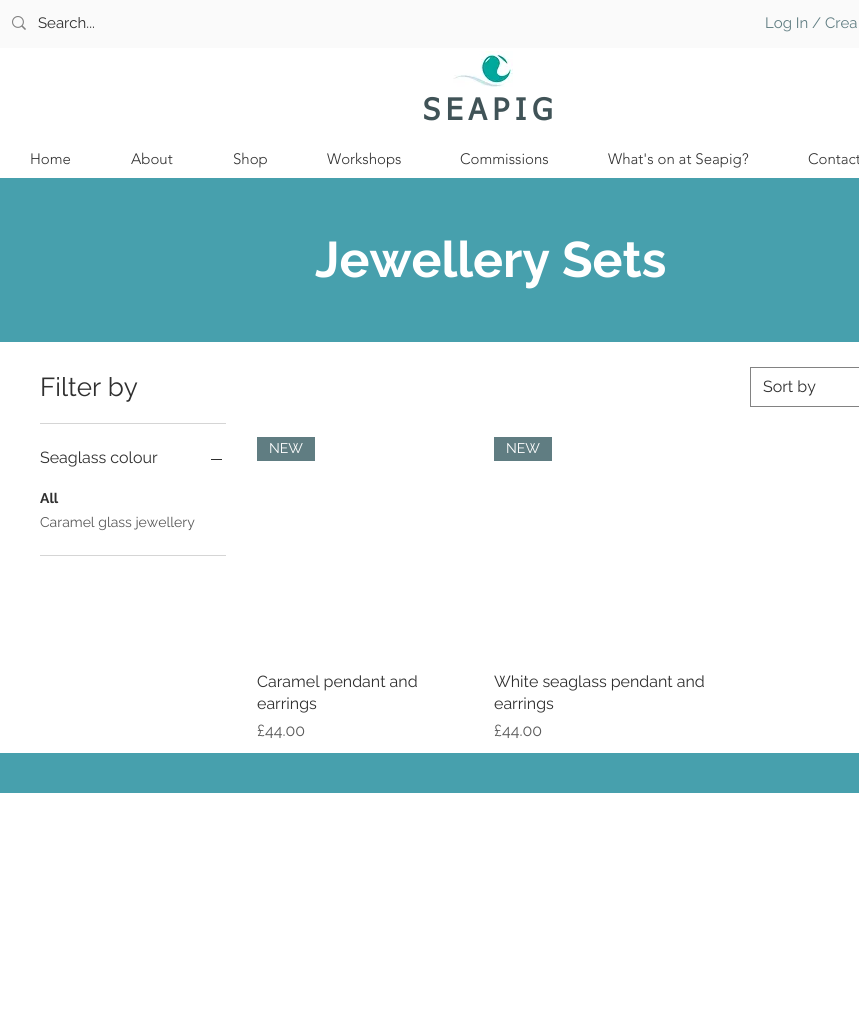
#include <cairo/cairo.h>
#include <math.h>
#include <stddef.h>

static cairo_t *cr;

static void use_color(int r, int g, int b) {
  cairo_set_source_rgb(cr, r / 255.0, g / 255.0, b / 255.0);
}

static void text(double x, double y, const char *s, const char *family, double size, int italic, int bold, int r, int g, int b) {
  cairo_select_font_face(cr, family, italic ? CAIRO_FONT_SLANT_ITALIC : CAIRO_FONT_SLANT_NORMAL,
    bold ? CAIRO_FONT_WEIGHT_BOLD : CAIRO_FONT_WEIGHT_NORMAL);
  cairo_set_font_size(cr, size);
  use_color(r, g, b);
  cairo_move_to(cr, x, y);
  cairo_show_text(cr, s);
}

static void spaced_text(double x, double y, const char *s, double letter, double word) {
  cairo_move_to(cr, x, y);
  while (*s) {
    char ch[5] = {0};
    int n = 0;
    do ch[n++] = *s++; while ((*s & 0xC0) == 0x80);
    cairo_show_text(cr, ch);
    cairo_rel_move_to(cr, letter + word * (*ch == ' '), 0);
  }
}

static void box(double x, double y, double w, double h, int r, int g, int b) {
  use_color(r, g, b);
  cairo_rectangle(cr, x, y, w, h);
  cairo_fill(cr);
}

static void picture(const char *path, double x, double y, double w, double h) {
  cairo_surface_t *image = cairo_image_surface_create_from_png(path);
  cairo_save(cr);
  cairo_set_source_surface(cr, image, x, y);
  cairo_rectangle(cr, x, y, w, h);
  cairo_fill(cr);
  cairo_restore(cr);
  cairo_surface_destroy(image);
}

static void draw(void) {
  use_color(255, 255, 255);
  cairo_paint(cr);
  box(0, 0, 859, 48, 250, 250, 250);
  picture("img_01.png", 12, 16, 14, 14);
  picture("img_02.png", 453, 51, 60, 36);
  box(0, 178, 859, 164, 71, 160, 173);
  box(40, 423, 186, 1, 213, 213, 213);
  box(40, 555, 186, 1, 213, 213, 213);
  box(211, 459, 11, 1, 47, 47, 47);
  cairo_rectangle(cr, 750.5, 367.5, 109, 39);
  use_color(130, 130, 130);
  cairo_set_line_width(cr, 1);
  cairo_stroke(cr);
  box(257, 437, 58, 24, 96, 125, 130);
  box(494, 437, 58, 24, 96, 125, 130);
  box(0, 753, 859, 40, 71, 160, 173);
  text(38, 28, "Search...", "Raleway", 15, 0, 0, 47, 47, 47);
  text(765, 28, "Log In / Crea", "Raleway", 15, 0, 0, 96, 125, 130);
  cairo_select_font_face(cr, "tahoma", CAIRO_FONT_SLANT_NORMAL, CAIRO_FONT_WEIGHT_BOLD);
  cairo_set_font_size(cr, 30);
  use_color(64, 83, 87);
  spaced_text(423, 120, "SEAPIG", 6, 0);
  text(30, 164, "Home", "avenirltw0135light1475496 Light", 15, 0, 0, 47, 47, 47);
  text(131, 164, "About", "avenirltw0135light1475496 Light", 15, 0, 0, 47, 47, 47);
  text(233, 164, "Shop", "avenirltw0135light1475496 Light", 15, 0, 0, 47, 47, 47);
  text(327, 164, "Workshops", "avenirltw0135light1475496 Light", 15, 0, 0, 47, 47, 47);
  text(460, 164, "Commissions", "avenirltw0135light1475496 Light", 15, 0, 0, 47, 47, 47);
  text(608, 164, "What's on at Seapig?", "avenirltw0135light1475496 Light", 15, 0, 0, 47, 47, 47);
  text(808, 164, "Contact", "avenirltw0135light1475496 Light", 15, 0, 0, 47, 47, 47);
  text(315, 277, "Jewellery Sets", "Raleway", 50, 0, 1, 255, 255, 255);
  text(40, 396, "Filter by", "Raleway", 26, 0, 0, 47, 47, 47);
  text(40, 463, "Seaglass colour", "Raleway", 16, 0, 0, 47, 47, 47);
  text(40, 503, "All", "Raleway", 14, 0, 1, 47, 47, 47);
  text(40, 527, "Caramel glass jewellery", "Raleway", 14, 0, 0, 89, 89, 89);
  text(763, 392, "Sort by", "Raleway", 16, 0, 0, 47, 47, 47);
  text(269, 453, "NEW", "Raleway", 14, 0, 0, 255, 255, 255);
  text(257, 687, "Caramel pendant and", "Raleway", 16, 0, 0, 47, 47, 47);
  text(257, 709, "earrings", "Raleway", 16, 0, 0, 47, 47, 47);
  text(257, 736, "£44.00", "Raleway", 16, 0, 0, 89, 89, 89);
  text(506, 453, "NEW", "Raleway", 14, 0, 0, 255, 255, 255);
  text(494, 687, "White seaglass pendant and", "Raleway", 16, 0, 0, 47, 47, 47);
  text(494, 709, "earrings", "Raleway", 16, 0, 0, 47, 47, 47);
  text(494, 736, "£44.00", "Raleway", 16, 0, 0, 89, 89, 89);
}

int main(void) {
  cairo_surface_t *surface = cairo_image_surface_create(CAIRO_FORMAT_RGB24, 859, 1015);
  cr = cairo_create(surface);
  cairo_font_options_t *options = cairo_font_options_create();
  cairo_font_options_set_hint_metrics(options, CAIRO_HINT_METRICS_OFF);
  cairo_font_options_set_hint_style(options, CAIRO_HINT_STYLE_NONE);
  cairo_set_font_options(cr, options);
  cairo_set_miter_limit(cr, 4);
  draw();
  cairo_surface_write_to_png(surface, "out.png");
  cairo_font_options_destroy(options);
  cairo_destroy(cr);
  cairo_surface_destroy(surface);
  return 0;
}
